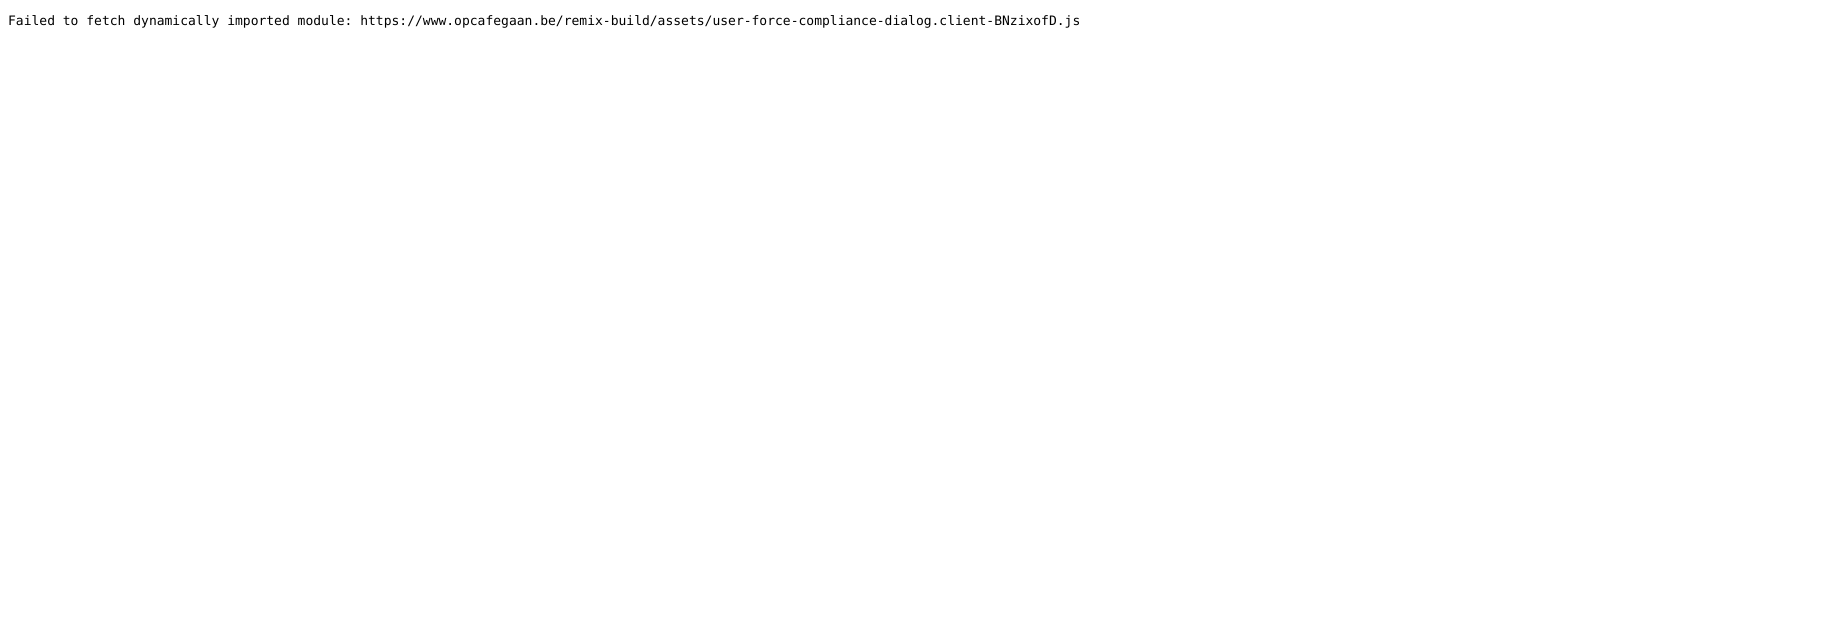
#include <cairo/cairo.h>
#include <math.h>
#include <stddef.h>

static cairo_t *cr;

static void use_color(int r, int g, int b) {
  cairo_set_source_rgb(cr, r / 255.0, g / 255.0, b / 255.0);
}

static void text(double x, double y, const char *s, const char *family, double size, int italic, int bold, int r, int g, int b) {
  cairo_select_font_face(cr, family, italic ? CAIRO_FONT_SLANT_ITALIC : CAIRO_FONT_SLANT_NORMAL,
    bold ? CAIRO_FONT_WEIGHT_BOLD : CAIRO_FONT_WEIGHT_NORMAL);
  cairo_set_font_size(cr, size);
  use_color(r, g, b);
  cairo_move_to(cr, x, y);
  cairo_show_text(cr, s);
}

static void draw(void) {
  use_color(255, 255, 255);
  cairo_paint(cr);
  text(8, 25, "Failed to fetch dynamically imported module: https://www.opcafegaan.be/remix-build/assets/user-force-compliance-dialog.client-BNzixofD.js", "DejaVu Sans Mono", 13, 0, 0, 0, 0, 0);
}

int main(void) {
  cairo_surface_t *surface = cairo_image_surface_create(CAIRO_FORMAT_RGB24, 1832, 621);
  cr = cairo_create(surface);
  cairo_font_options_t *options = cairo_font_options_create();
  cairo_font_options_set_hint_metrics(options, CAIRO_HINT_METRICS_OFF);
  cairo_font_options_set_hint_style(options, CAIRO_HINT_STYLE_NONE);
  cairo_set_font_options(cr, options);
  cairo_set_miter_limit(cr, 4);
  draw();
  cairo_surface_write_to_png(surface, "out.png");
  cairo_font_options_destroy(options);
  cairo_destroy(cr);
  cairo_surface_destroy(surface);
  return 0;
}
